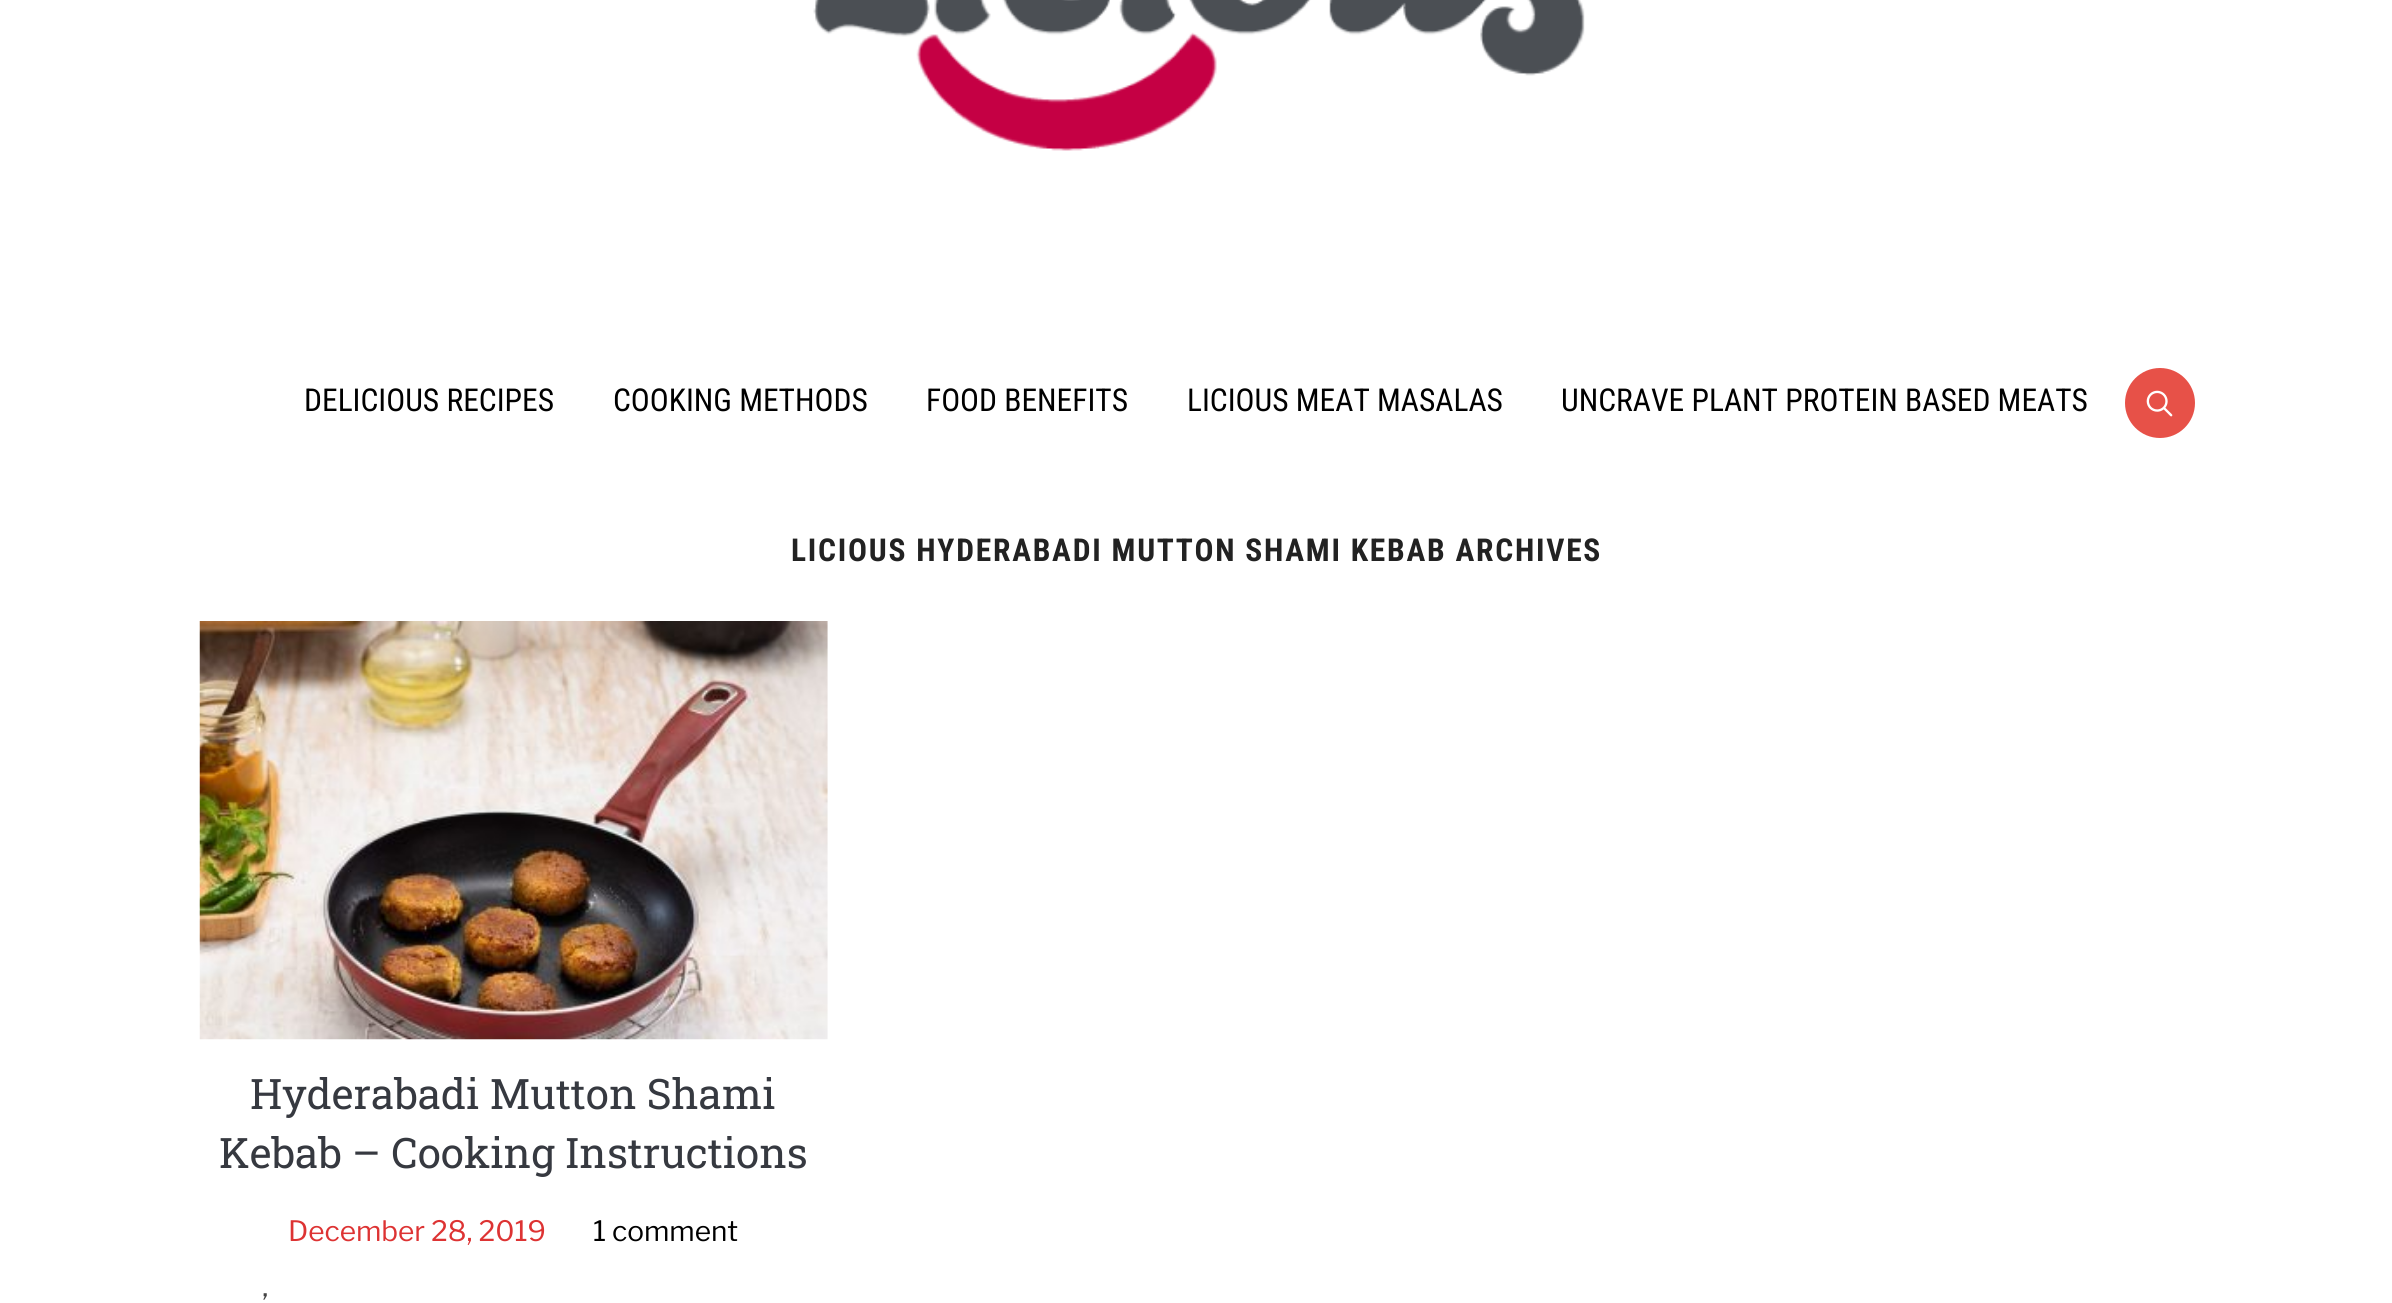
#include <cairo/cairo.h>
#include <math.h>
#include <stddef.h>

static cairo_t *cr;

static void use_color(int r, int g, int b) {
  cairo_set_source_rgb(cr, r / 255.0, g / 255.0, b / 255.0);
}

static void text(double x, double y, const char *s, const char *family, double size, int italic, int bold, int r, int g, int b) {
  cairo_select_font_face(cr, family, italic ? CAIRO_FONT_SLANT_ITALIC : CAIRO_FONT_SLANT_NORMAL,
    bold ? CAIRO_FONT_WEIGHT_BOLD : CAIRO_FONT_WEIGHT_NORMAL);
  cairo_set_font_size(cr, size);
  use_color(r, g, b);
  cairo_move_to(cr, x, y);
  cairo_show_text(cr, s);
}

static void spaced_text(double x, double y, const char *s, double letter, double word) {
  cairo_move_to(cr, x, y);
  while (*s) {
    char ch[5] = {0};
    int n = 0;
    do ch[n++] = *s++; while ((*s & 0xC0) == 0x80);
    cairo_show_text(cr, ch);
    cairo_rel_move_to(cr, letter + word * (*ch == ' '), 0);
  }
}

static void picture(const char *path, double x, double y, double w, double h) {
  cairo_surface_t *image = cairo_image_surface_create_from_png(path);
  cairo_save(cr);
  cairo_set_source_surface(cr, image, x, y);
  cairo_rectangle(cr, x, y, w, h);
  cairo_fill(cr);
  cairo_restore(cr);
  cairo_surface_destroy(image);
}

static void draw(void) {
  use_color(255, 255, 255);
  cairo_paint(cr);
  picture("img_01.png", 813, 0, 772, 151);
  use_color(231, 81, 72);
  cairo_arc(cr, 2160, 403, 35, 0, 2 * M_PI);
  cairo_fill(cr);
  picture("img_02.png", 2146, 390, 27, 27);
  picture("img_03.png", 199, 621, 629, 419);
  text(304, 411, "DELICIOUS RECIPES", "Roboto Condensed", 31.5, 0, 0, 0, 0, 0);
  text(613, 411, "COOKING METHODS", "Roboto Condensed", 31.5, 0, 0, 0, 0, 0);
  text(926, 411, "FOOD BENEFITS", "Roboto Condensed", 31.5, 0, 0, 0, 0, 0);
  text(1187, 411, "LICIOUS MEAT MASALAS", "Roboto Condensed", 31.5, 0, 0, 0, 0, 0);
  text(1561, 411, "UNCRAVE PLANT PROTEIN BASED MEATS", "Roboto Condensed", 31.5, 0, 0, 0, 0, 0);
  cairo_select_font_face(cr, "Roboto Condensed", CAIRO_FONT_SLANT_NORMAL, CAIRO_FONT_WEIGHT_BOLD);
  use_color(34, 34, 34);
  spaced_text(791, 561, "LICIOUS HYDERABADI MUTTON SHAMI KEBAB ARCHIVES", 1.75, 0);
  text(250, 1109, "Hyderabadi Mutton Shami", "Roboto Slab", 42, 0, 0, 54, 57, 64);
  text(219, 1168, "Kebab – Cooking Instructions", "Roboto Slab", 42, 0, 0, 54, 57, 64);
  text(288, 1241, "December 28, 2019", "Libre Franklin", 28, 0, 0, 221, 51, 51);
  text(593, 1241, "1 comment", "Libre Franklin", 28, 0, 0, 0, 0, 0);
  text(262, 1314, "’", "Libre Franklin", 28, 0, 0, 68, 68, 68);
}

int main(void) {
  cairo_surface_t *surface = cairo_image_surface_create(CAIRO_FORMAT_RGB24, 2392, 1303);
  cr = cairo_create(surface);
  cairo_font_options_t *options = cairo_font_options_create();
  cairo_font_options_set_hint_metrics(options, CAIRO_HINT_METRICS_OFF);
  cairo_font_options_set_hint_style(options, CAIRO_HINT_STYLE_NONE);
  cairo_set_font_options(cr, options);
  cairo_set_miter_limit(cr, 4);
  draw();
  cairo_surface_write_to_png(surface, "out.png");
  cairo_font_options_destroy(options);
  cairo_destroy(cr);
  cairo_surface_destroy(surface);
  return 0;
}
